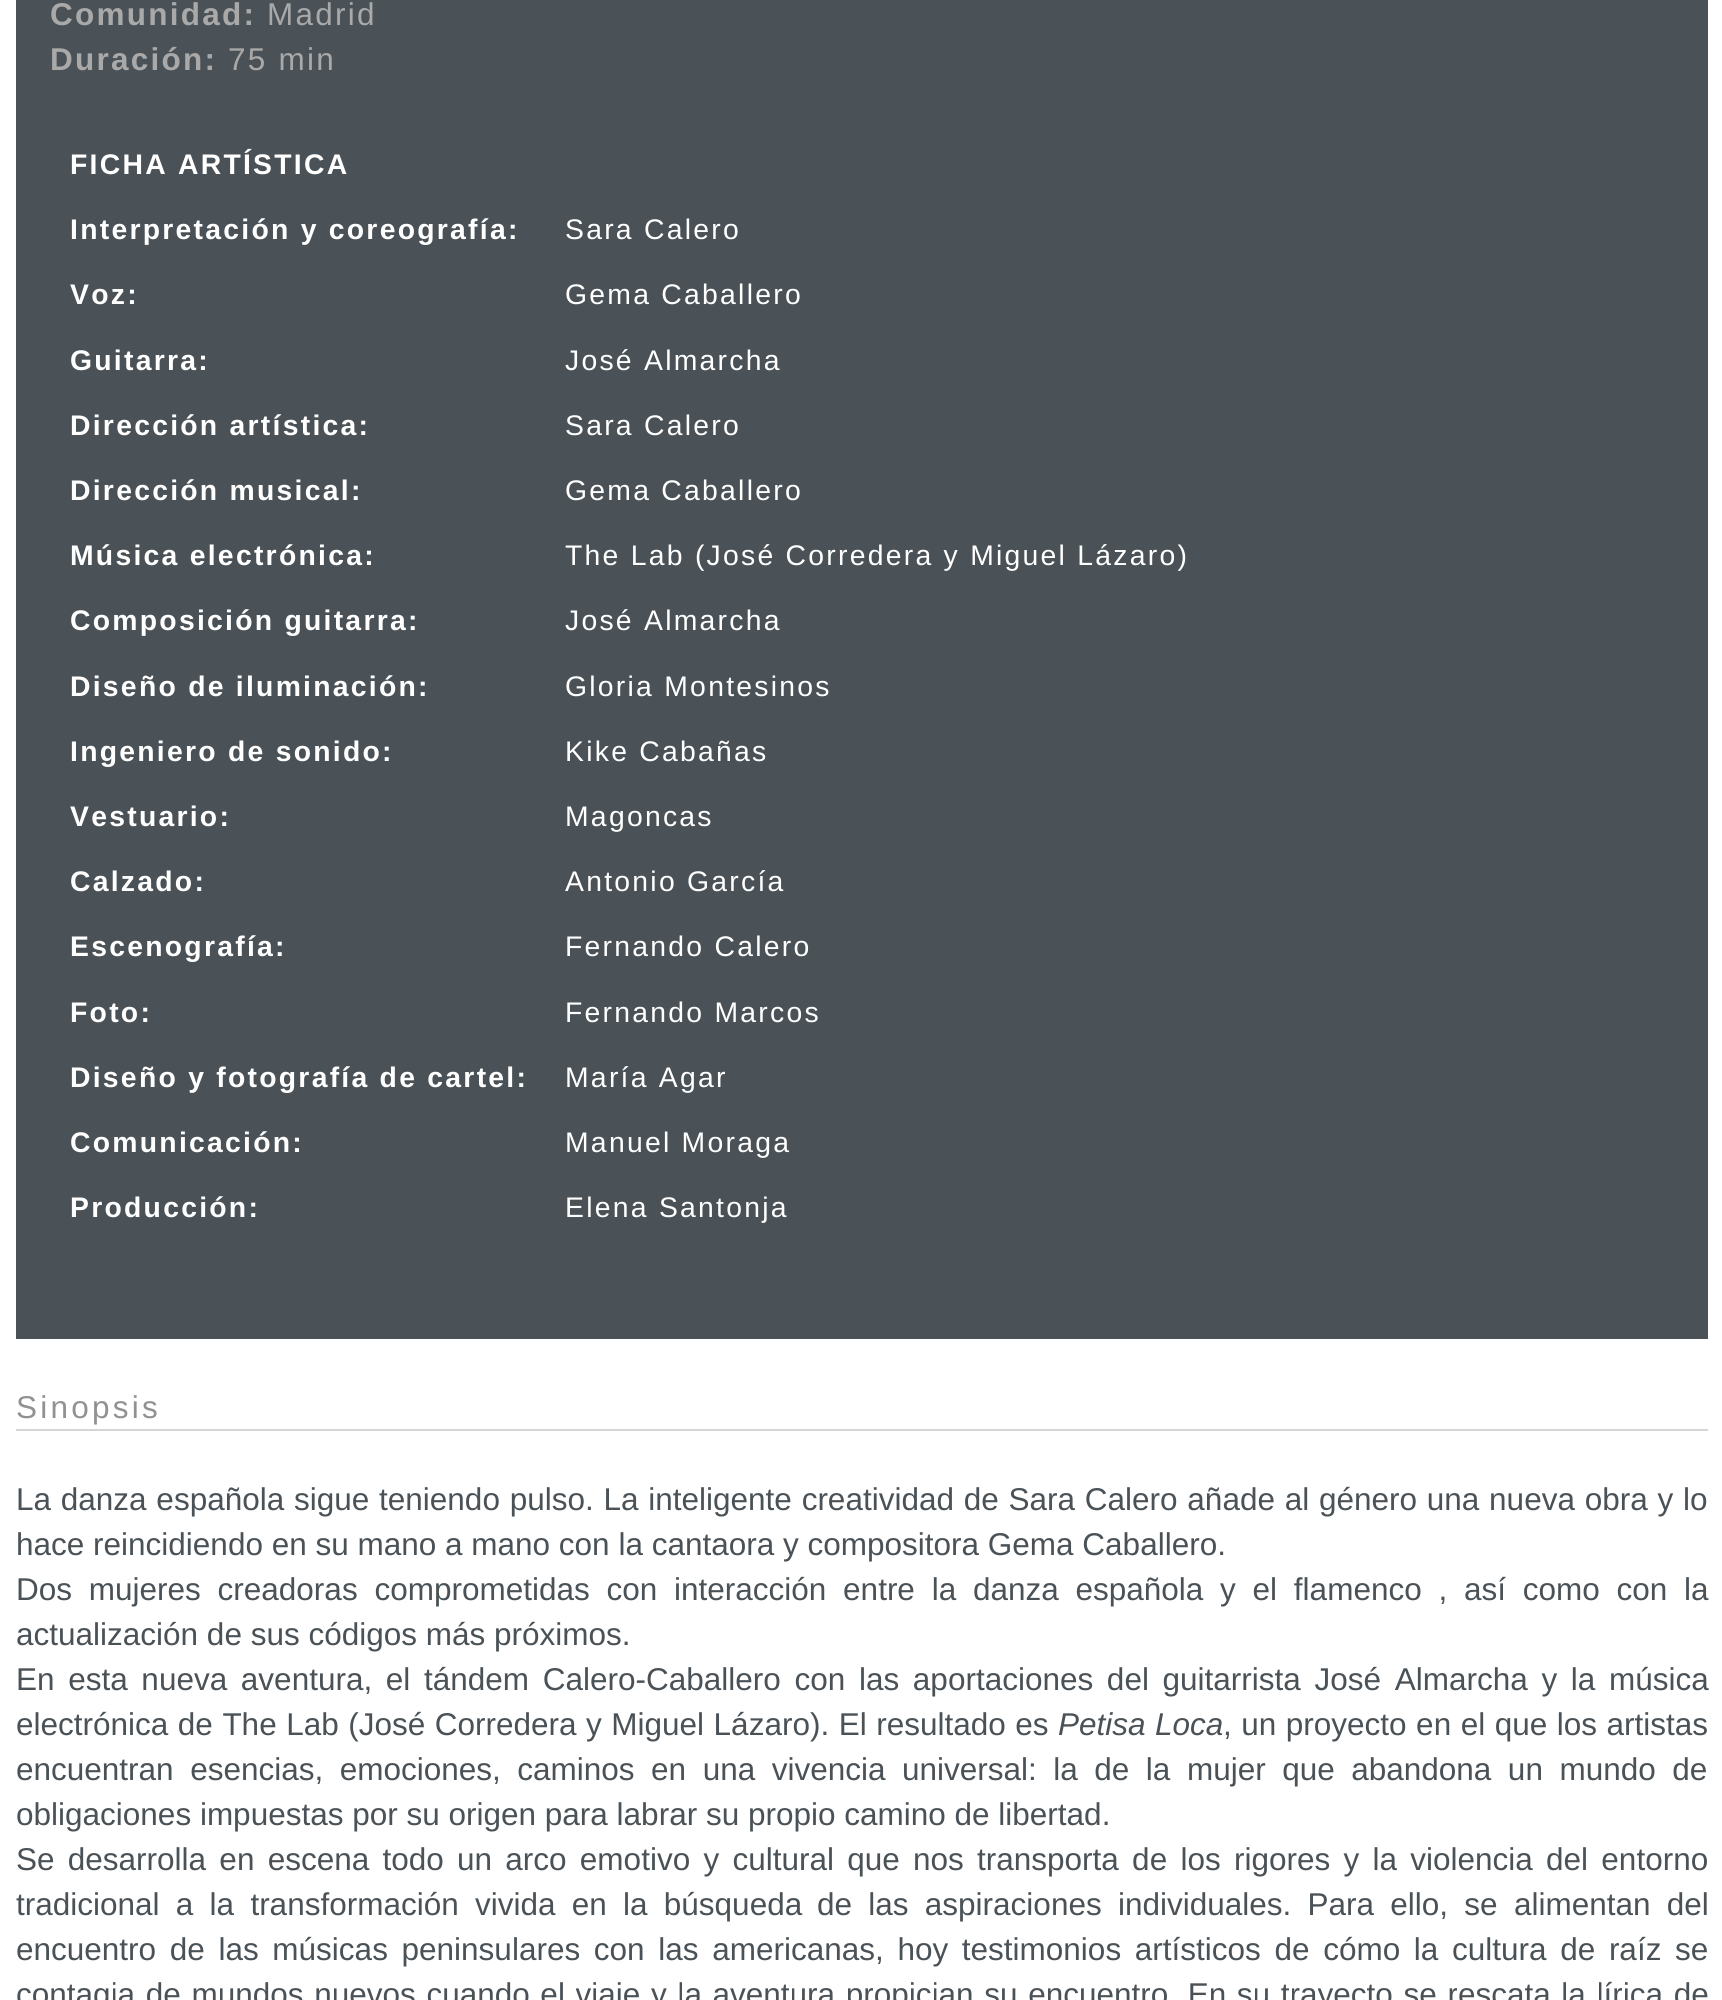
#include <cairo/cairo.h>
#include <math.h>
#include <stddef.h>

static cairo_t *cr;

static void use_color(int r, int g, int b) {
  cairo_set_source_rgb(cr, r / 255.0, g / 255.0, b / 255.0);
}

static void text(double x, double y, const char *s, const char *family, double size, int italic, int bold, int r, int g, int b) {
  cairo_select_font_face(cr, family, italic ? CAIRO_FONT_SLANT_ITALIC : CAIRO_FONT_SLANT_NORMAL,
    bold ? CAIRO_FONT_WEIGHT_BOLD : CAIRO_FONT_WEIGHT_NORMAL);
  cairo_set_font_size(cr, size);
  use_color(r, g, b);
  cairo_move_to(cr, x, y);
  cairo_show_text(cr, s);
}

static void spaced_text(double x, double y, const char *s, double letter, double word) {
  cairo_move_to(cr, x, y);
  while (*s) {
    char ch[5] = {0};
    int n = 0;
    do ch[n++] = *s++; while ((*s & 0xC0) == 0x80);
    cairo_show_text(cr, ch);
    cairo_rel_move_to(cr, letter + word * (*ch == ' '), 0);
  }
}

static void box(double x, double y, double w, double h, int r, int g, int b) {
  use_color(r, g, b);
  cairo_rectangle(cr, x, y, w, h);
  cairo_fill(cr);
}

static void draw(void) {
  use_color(255, 255, 255);
  cairo_paint(cr);
  box(16, 0, 1692, 1339, 74, 82, 87);
  box(16, 1429, 1692, 2, 213, 213, 213);
  cairo_select_font_face(cr, "Liberation Sans", CAIRO_FONT_SLANT_NORMAL, CAIRO_FONT_WEIGHT_BOLD);
  cairo_set_font_size(cr, 31.5);
  use_color(169, 169, 169);
  spaced_text(50, 25, "Comunidad:", 2.25, 0);
  cairo_select_font_face(cr, "Liberation Sans", CAIRO_FONT_SLANT_NORMAL, CAIRO_FONT_WEIGHT_NORMAL);
  spaced_text(267, 25, "Madrid", 2.25, 0);
  cairo_select_font_face(cr, "Liberation Sans", CAIRO_FONT_SLANT_NORMAL, CAIRO_FONT_WEIGHT_BOLD);
  spaced_text(50, 70, "Duración:", 2.25, 0);
  cairo_select_font_face(cr, "Liberation Sans", CAIRO_FONT_SLANT_NORMAL, CAIRO_FONT_WEIGHT_NORMAL);
  spaced_text(228, 70, "75 min", 2.25, 0);
  cairo_select_font_face(cr, "Liberation Sans", CAIRO_FONT_SLANT_NORMAL, CAIRO_FONT_WEIGHT_BOLD);
  cairo_set_font_size(cr, 28.35);
  use_color(255, 255, 255);
  spaced_text(70, 174, "FICHA ARTÍSTICA", 2.25, 0);
  spaced_text(70, 239, "Interpretación y coreografía:", 2.25, 0);
  cairo_select_font_face(cr, "Liberation Sans", CAIRO_FONT_SLANT_NORMAL, CAIRO_FONT_WEIGHT_NORMAL);
  spaced_text(565, 239, "Sara Calero", 2.25, 0);
  cairo_select_font_face(cr, "Liberation Sans", CAIRO_FONT_SLANT_NORMAL, CAIRO_FONT_WEIGHT_BOLD);
  spaced_text(70, 304, "Voz:", 2.25, 0);
  cairo_select_font_face(cr, "Liberation Sans", CAIRO_FONT_SLANT_NORMAL, CAIRO_FONT_WEIGHT_NORMAL);
  spaced_text(565, 304, "Gema Caballero", 2.25, 0);
  cairo_select_font_face(cr, "Liberation Sans", CAIRO_FONT_SLANT_NORMAL, CAIRO_FONT_WEIGHT_BOLD);
  spaced_text(70, 370, "Guitarra:", 2.25, 0);
  cairo_select_font_face(cr, "Liberation Sans", CAIRO_FONT_SLANT_NORMAL, CAIRO_FONT_WEIGHT_NORMAL);
  spaced_text(565, 370, "José Almarcha", 2.25, 0);
  cairo_select_font_face(cr, "Liberation Sans", CAIRO_FONT_SLANT_NORMAL, CAIRO_FONT_WEIGHT_BOLD);
  spaced_text(70, 435, "Dirección artística:", 2.25, 0);
  cairo_select_font_face(cr, "Liberation Sans", CAIRO_FONT_SLANT_NORMAL, CAIRO_FONT_WEIGHT_NORMAL);
  spaced_text(565, 435, "Sara Calero", 2.25, 0);
  cairo_select_font_face(cr, "Liberation Sans", CAIRO_FONT_SLANT_NORMAL, CAIRO_FONT_WEIGHT_BOLD);
  spaced_text(70, 500, "Dirección musical:", 2.25, 0);
  cairo_select_font_face(cr, "Liberation Sans", CAIRO_FONT_SLANT_NORMAL, CAIRO_FONT_WEIGHT_NORMAL);
  spaced_text(565, 500, "Gema Caballero", 2.25, 0);
  cairo_select_font_face(cr, "Liberation Sans", CAIRO_FONT_SLANT_NORMAL, CAIRO_FONT_WEIGHT_BOLD);
  spaced_text(70, 565, "Música electrónica:", 2.25, 0);
  cairo_select_font_face(cr, "Liberation Sans", CAIRO_FONT_SLANT_NORMAL, CAIRO_FONT_WEIGHT_NORMAL);
  spaced_text(565, 565, "The Lab (José Corredera y Miguel Lázaro)", 2.25, 0);
  cairo_select_font_face(cr, "Liberation Sans", CAIRO_FONT_SLANT_NORMAL, CAIRO_FONT_WEIGHT_BOLD);
  spaced_text(70, 630, "Composición guitarra:", 2.25, 0);
  cairo_select_font_face(cr, "Liberation Sans", CAIRO_FONT_SLANT_NORMAL, CAIRO_FONT_WEIGHT_NORMAL);
  spaced_text(565, 630, "José Almarcha", 2.25, 0);
  cairo_select_font_face(cr, "Liberation Sans", CAIRO_FONT_SLANT_NORMAL, CAIRO_FONT_WEIGHT_BOLD);
  spaced_text(70, 696, "Diseño de iluminación:", 2.25, 0);
  cairo_select_font_face(cr, "Liberation Sans", CAIRO_FONT_SLANT_NORMAL, CAIRO_FONT_WEIGHT_NORMAL);
  spaced_text(565, 696, "Gloria Montesinos", 2.25, 0);
  cairo_select_font_face(cr, "Liberation Sans", CAIRO_FONT_SLANT_NORMAL, CAIRO_FONT_WEIGHT_BOLD);
  spaced_text(70, 761, "Ingeniero de sonido:", 2.25, 0);
  cairo_select_font_face(cr, "Liberation Sans", CAIRO_FONT_SLANT_NORMAL, CAIRO_FONT_WEIGHT_NORMAL);
  spaced_text(565, 761, "Kike Cabañas", 2.25, 0);
  cairo_select_font_face(cr, "Liberation Sans", CAIRO_FONT_SLANT_NORMAL, CAIRO_FONT_WEIGHT_BOLD);
  spaced_text(70, 826, "Vestuario:", 2.25, 0);
  cairo_select_font_face(cr, "Liberation Sans", CAIRO_FONT_SLANT_NORMAL, CAIRO_FONT_WEIGHT_NORMAL);
  spaced_text(565, 826, "Magoncas", 2.25, 0);
  cairo_select_font_face(cr, "Liberation Sans", CAIRO_FONT_SLANT_NORMAL, CAIRO_FONT_WEIGHT_BOLD);
  spaced_text(70, 891, "Calzado:", 2.25, 0);
  cairo_select_font_face(cr, "Liberation Sans", CAIRO_FONT_SLANT_NORMAL, CAIRO_FONT_WEIGHT_NORMAL);
  spaced_text(565, 891, "Antonio García", 2.25, 0);
  cairo_select_font_face(cr, "Liberation Sans", CAIRO_FONT_SLANT_NORMAL, CAIRO_FONT_WEIGHT_BOLD);
  spaced_text(70, 956, "Escenografía:", 2.25, 0);
  cairo_select_font_face(cr, "Liberation Sans", CAIRO_FONT_SLANT_NORMAL, CAIRO_FONT_WEIGHT_NORMAL);
  spaced_text(565, 956, "Fernando Calero", 2.25, 0);
  cairo_select_font_face(cr, "Liberation Sans", CAIRO_FONT_SLANT_NORMAL, CAIRO_FONT_WEIGHT_BOLD);
  spaced_text(70, 1022, "Foto:", 2.25, 0);
  cairo_select_font_face(cr, "Liberation Sans", CAIRO_FONT_SLANT_NORMAL, CAIRO_FONT_WEIGHT_NORMAL);
  spaced_text(565, 1022, "Fernando Marcos", 2.25, 0);
  cairo_select_font_face(cr, "Liberation Sans", CAIRO_FONT_SLANT_NORMAL, CAIRO_FONT_WEIGHT_BOLD);
  spaced_text(70, 1087, "Diseño y fotografía de cartel:", 2.25, 0);
  cairo_select_font_face(cr, "Liberation Sans", CAIRO_FONT_SLANT_NORMAL, CAIRO_FONT_WEIGHT_NORMAL);
  spaced_text(565, 1087, "María Agar", 2.25, 0);
  cairo_select_font_face(cr, "Liberation Sans", CAIRO_FONT_SLANT_NORMAL, CAIRO_FONT_WEIGHT_BOLD);
  spaced_text(70, 1152, "Comunicación:", 2.25, 0);
  cairo_select_font_face(cr, "Liberation Sans", CAIRO_FONT_SLANT_NORMAL, CAIRO_FONT_WEIGHT_NORMAL);
  spaced_text(565, 1152, "Manuel Moraga", 2.25, 0);
  cairo_select_font_face(cr, "Liberation Sans", CAIRO_FONT_SLANT_NORMAL, CAIRO_FONT_WEIGHT_BOLD);
  spaced_text(70, 1217, "Producción:", 2.25, 0);
  cairo_select_font_face(cr, "Liberation Sans", CAIRO_FONT_SLANT_NORMAL, CAIRO_FONT_WEIGHT_NORMAL);
  spaced_text(565, 1217, "Elena Santonja", 2.25, 0);
  cairo_set_font_size(cr, 31.5);
  use_color(145, 145, 145);
  spaced_text(16, 1418, "Sinopsis", 3.25, 0);
  use_color(74, 82, 87);
  spaced_text(16, 1510, "La danza española sigue teniendo pulso. La inteligente creatividad de Sara Calero añade al género una nueva obra y lo", 0, 1);
  text(16, 1555, "hace reincidiendo en su mano a mano con la cantaora y compositora Gema Caballero.", "Liberation Sans", 31.5, 0, 0, 74, 82, 87);
  spaced_text(16, 1600, "Dos mujeres creadoras comprometidas con interacción entre la danza española y el flamenco , así como con la", 0, 8);
  text(16, 1645, "actualización de sus códigos más próximos.", "Liberation Sans", 31.5, 0, 0, 74, 82, 87);
  spaced_text(16, 1690, "En esta nueva aventura, el tándem Calero-Caballero con las aportaciones del guitarrista José Almarcha y la música", 0, 4.9);
  spaced_text(16, 1735, "electrónica de The Lab (José Corredera y Miguel Lázaro). El resultado es", 0, 0.75);
  cairo_select_font_face(cr, "Liberation Sans", CAIRO_FONT_SLANT_ITALIC, CAIRO_FONT_WEIGHT_NORMAL);
  spaced_text(1058, 1735, "Petisa Loca", 0, 0.75);
  cairo_select_font_face(cr, "Liberation Sans", CAIRO_FONT_SLANT_NORMAL, CAIRO_FONT_WEIGHT_NORMAL);
  spaced_text(1223, 1735, ", un proyecto en el que los artistas", 0, 0.75);
  spaced_text(16, 1780, "encuentran esencias, emociones, caminos en una vivencia universal: la de la mujer que abandona un mundo de", 0, 7.75);
  text(16, 1825, "obligaciones impuestas por su origen para labrar su propio camino de libertad.", "Liberation Sans", 31.5, 0, 0, 74, 82, 87);
  spaced_text(16, 1870, "Se desarrolla en escena todo un arco emotivo y cultural que nos transporta de los rigores y la violencia del entorno", 0, 4.5);
  spaced_text(16, 1915, "tradicional a la transformación vivida en la búsqueda", 0, 7.5);
  spaced_text(817, 1915, "de las aspiraciones individuales. Para ello, se alimentan del", 0, 7.5);
  spaced_text(16, 1960, "encuentro de las músicas peninsulares con las americanas, hoy testimonios artísticos de cómo la cultura de raíz se", 0, 4.9);
  spaced_text(16, 2005, "contagia de mundos nuevos cuando el viaje y la aventura propician su encuentro. En su trayecto se rescata la lírica de", 0, 1.9);
}

int main(void) {
  cairo_surface_t *surface = cairo_image_surface_create(CAIRO_FORMAT_RGB24, 1722, 2000);
  cr = cairo_create(surface);
  cairo_font_options_t *options = cairo_font_options_create();
  cairo_font_options_set_hint_metrics(options, CAIRO_HINT_METRICS_OFF);
  cairo_font_options_set_hint_style(options, CAIRO_HINT_STYLE_NONE);
  cairo_set_font_options(cr, options);
  cairo_set_miter_limit(cr, 4);
  draw();
  cairo_surface_write_to_png(surface, "out.png");
  cairo_font_options_destroy(options);
  cairo_destroy(cr);
  cairo_surface_destroy(surface);
  return 0;
}
